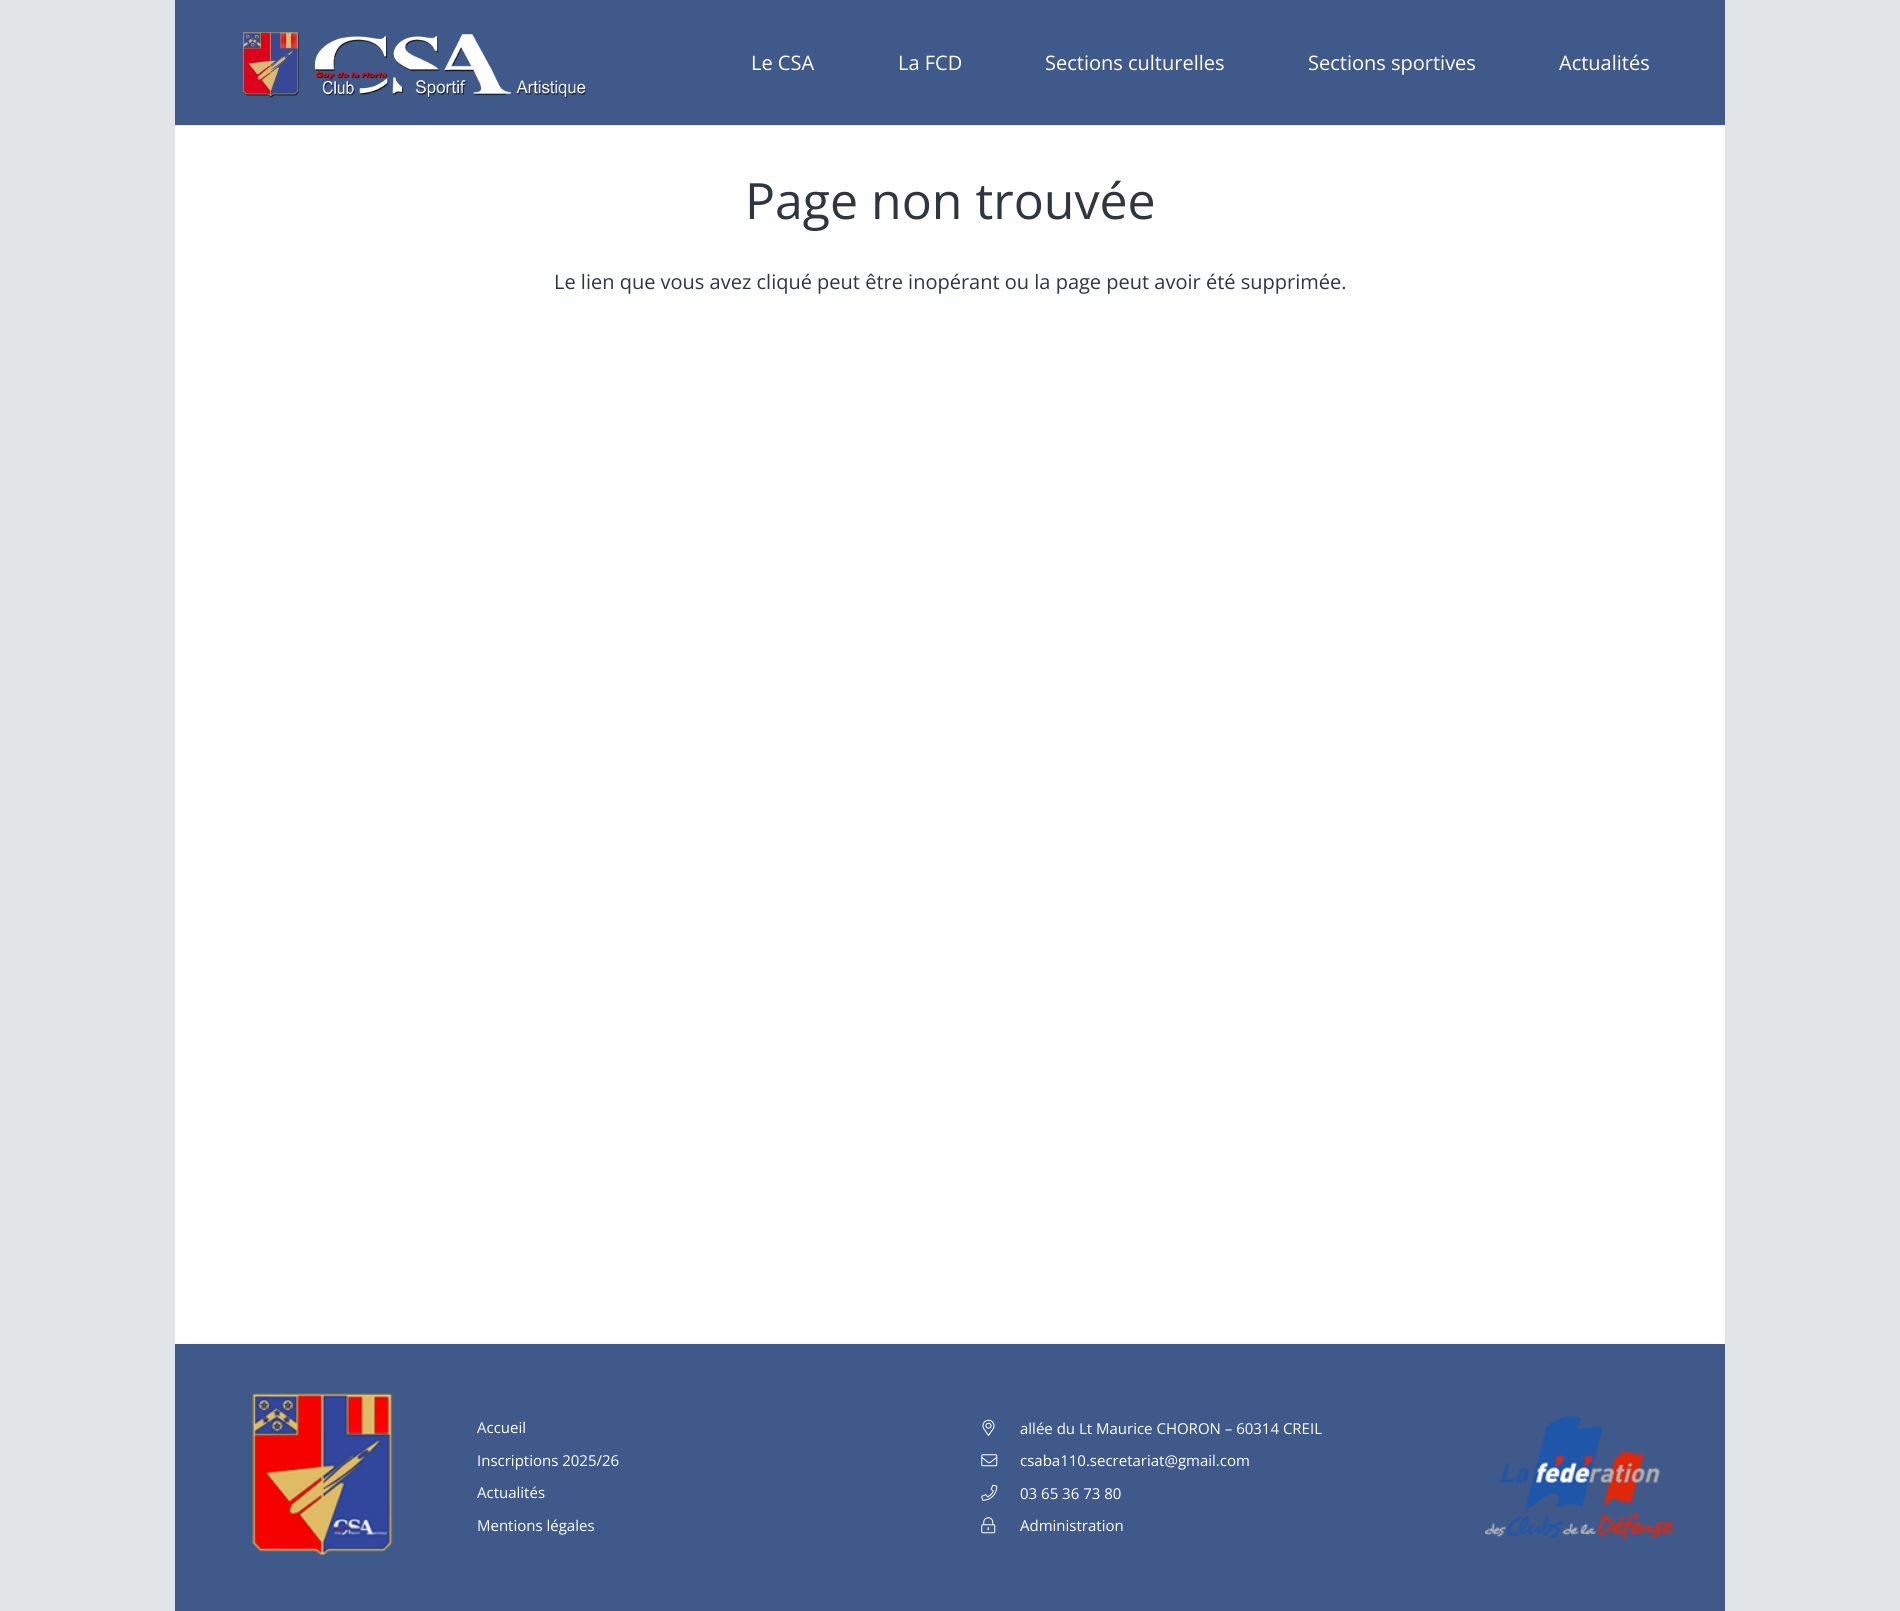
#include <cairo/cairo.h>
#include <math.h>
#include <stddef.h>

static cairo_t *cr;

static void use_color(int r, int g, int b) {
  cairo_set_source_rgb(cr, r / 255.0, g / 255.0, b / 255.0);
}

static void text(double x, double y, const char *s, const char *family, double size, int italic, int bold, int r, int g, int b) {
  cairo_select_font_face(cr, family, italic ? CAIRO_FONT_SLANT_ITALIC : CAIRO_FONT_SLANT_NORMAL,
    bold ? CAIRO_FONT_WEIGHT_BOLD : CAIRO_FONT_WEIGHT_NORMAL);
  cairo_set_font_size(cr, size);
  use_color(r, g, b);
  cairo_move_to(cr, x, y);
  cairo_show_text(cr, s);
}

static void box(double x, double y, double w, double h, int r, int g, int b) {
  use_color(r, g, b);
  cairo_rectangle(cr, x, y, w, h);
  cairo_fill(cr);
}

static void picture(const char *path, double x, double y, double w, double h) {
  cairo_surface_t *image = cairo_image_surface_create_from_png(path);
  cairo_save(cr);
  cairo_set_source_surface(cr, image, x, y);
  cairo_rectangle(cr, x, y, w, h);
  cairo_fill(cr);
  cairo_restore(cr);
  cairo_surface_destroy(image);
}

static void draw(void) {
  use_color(225, 229, 232);
  cairo_paint(cr);
  box(175, 126, 1550, 1218, 255, 255, 255);
  box(175, 125, 1550, 1, 235, 235, 235);
  box(175, 0, 1550, 125, 63, 89, 138);
  picture("img_01.png", 243, 32, 343, 66);
  box(175, 1344, 1550, 267, 63, 89, 138);
  picture("img_02.png", 252, 1393, 141, 163);
  picture("img_03.png", 982, 1419, 13, 17);
  picture("img_04.png", 981, 1454, 17, 13);
  picture("img_05.png", 981, 1484, 17, 17);
  picture("img_06.png", 981, 1517, 15, 17);
  picture("img_07.png", 1485, 1416, 188, 123);
  text(751, 70, "Le CSA", "Open Sans", 20, 0, 0, 255, 255, 255);
  text(898, 70, "La FCD", "Open Sans", 20, 0, 0, 255, 255, 255);
  text(1045, 70, "Sections culturelles", "Open Sans", 20, 0, 0, 255, 255, 255);
  text(1308, 70, "Sections sportives", "Open Sans", 20, 0, 0, 255, 255, 255);
  text(1559, 70, "Actualités", "Open Sans", 20, 0, 0, 255, 255, 255);
  text(745, 219, "Page non trouvée", "Open Sans", 50, 0, 0, 48, 54, 64);
  text(554, 289, "Le lien que vous avez cliqué peut être inopérant ou la page peut avoir été supprimée.", "Open Sans", 20, 0, 0, 48, 54, 64);
  text(477, 1433, "Accueil", "Open Sans", 15, 0, 0, 255, 255, 255);
  text(477, 1466, "Inscriptions 2025/26", "Open Sans", 15, 0, 0, 255, 255, 255);
  text(477, 1498, "Actualités", "Open Sans", 15, 0, 0, 255, 255, 255);
  text(477, 1531, "Mentions légales", "Open Sans", 15, 0, 0, 255, 255, 255);
  text(1020, 1434, "allée du Lt Maurice CHORON – 60314 CREIL", "Open Sans", 15, 0, 0, 255, 255, 255);
  text(1020, 1466, "csaba110.secretariat@gmail.com", "Open Sans", 15, 0, 0, 255, 255, 255);
  text(1020, 1499, "03 65 36 73 80", "Open Sans", 15, 0, 0, 255, 255, 255);
  text(1020, 1531, "Administration", "Open Sans", 15, 0, 0, 255, 255, 255);
}

int main(void) {
  cairo_surface_t *surface = cairo_image_surface_create(CAIRO_FORMAT_RGB24, 1900, 1611);
  cr = cairo_create(surface);
  cairo_font_options_t *options = cairo_font_options_create();
  cairo_font_options_set_hint_metrics(options, CAIRO_HINT_METRICS_OFF);
  cairo_font_options_set_hint_style(options, CAIRO_HINT_STYLE_NONE);
  cairo_set_font_options(cr, options);
  cairo_set_miter_limit(cr, 4);
  draw();
  cairo_surface_write_to_png(surface, "out.png");
  cairo_font_options_destroy(options);
  cairo_destroy(cr);
  cairo_surface_destroy(surface);
  return 0;
}
